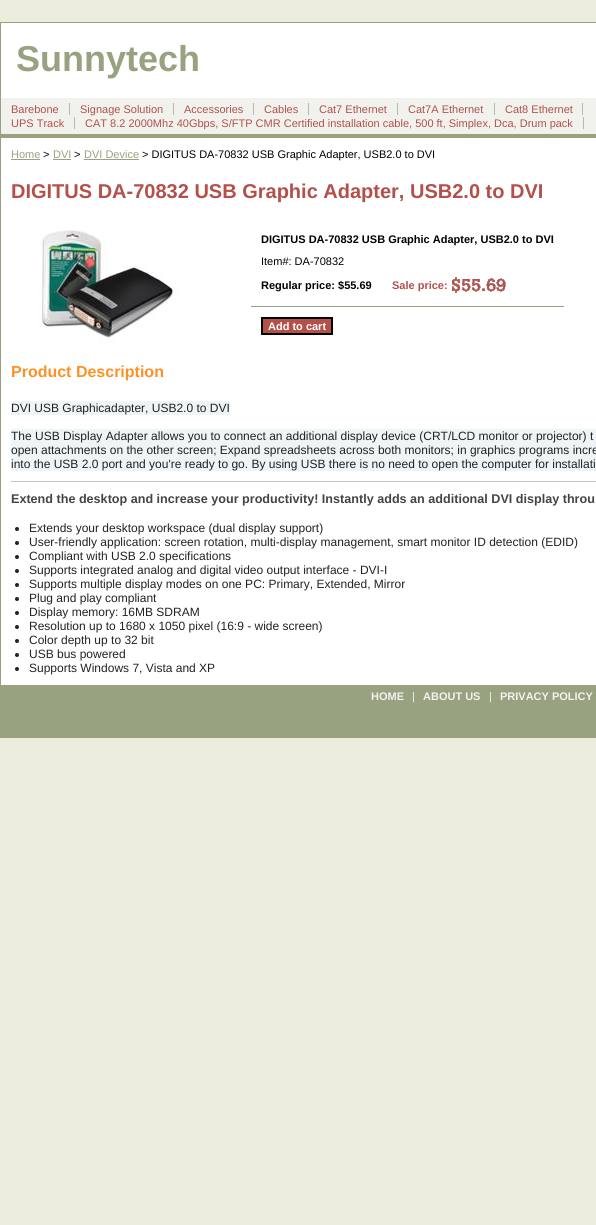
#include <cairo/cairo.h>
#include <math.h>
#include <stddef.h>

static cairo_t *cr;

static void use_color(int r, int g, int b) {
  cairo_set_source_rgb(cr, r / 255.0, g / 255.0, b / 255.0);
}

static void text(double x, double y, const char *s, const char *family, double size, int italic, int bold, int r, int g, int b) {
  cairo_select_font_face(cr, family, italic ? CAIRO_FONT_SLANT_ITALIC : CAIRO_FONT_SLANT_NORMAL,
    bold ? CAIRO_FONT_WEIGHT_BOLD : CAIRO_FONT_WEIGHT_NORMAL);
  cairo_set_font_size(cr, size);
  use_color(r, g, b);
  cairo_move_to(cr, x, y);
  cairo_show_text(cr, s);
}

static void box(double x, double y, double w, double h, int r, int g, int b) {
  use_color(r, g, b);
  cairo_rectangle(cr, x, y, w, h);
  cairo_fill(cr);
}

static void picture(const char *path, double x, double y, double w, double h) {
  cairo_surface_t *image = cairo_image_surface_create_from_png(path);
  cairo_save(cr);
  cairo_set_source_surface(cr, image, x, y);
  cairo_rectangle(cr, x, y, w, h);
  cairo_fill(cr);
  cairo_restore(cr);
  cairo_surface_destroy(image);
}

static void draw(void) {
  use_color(236, 237, 220);
  cairo_paint(cr);
  box(1, 23, 595, 662, 255, 255, 255);
  cairo_rectangle(cr, 0.5, 22.5, 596, 715);
  use_color(152, 162, 128);
  cairo_set_line_width(cr, 1);
  cairo_stroke(cr);
  box(1, 98, 595, 36, 241, 242, 237);
  box(1, 134, 595, 4, 152, 162, 128);
  box(69, 103, 1, 12, 180, 187, 171);
  box(173, 103, 1, 12, 180, 187, 171);
  box(253, 103, 1, 12, 180, 187, 171);
  box(308, 103, 1, 12, 180, 187, 171);
  box(397, 103, 1, 12, 180, 187, 171);
  box(494, 103, 1, 12, 180, 187, 171);
  box(582, 103, 1, 12, 180, 187, 171);
  box(74, 117, 1, 12, 180, 187, 171);
  box(583, 117, 1, 12, 180, 187, 171);
  box(11, 159, 29, 1, 152, 162, 128);
  box(53, 159, 18, 1, 152, 162, 128);
  box(84, 159, 55, 1, 152, 162, 128);
  picture("img_01.png", 39, 230, 140, 113);
  picture("img_02.png", 452, 277, 54, 16);
  box(251, 306, 313, 1, 152, 162, 128);
  use_color(179, 80, 74);
  cairo_rectangle(cr, 262, 318, 70, 16);
  cairo_fill_preserve(cr);
  use_color(0, 0, 0);
  cairo_set_line_width(cr, 2);
  cairo_stroke(cr);
  box(11, 401, 219, 14, 239, 244, 247);
  box(11, 429, 585, 42, 239, 244, 247);
  box(11, 481, 585, 1, 197, 197, 197);
  use_color(34, 34, 34);
  cairo_arc(cr, 17, 529, 2, 0, 2 * M_PI);
  cairo_fill(cr);
  cairo_arc(cr, 17, 543, 2, 0, 2 * M_PI);
  cairo_fill(cr);
  cairo_arc(cr, 17, 557, 2, 0, 2 * M_PI);
  cairo_fill(cr);
  cairo_arc(cr, 17, 571, 2, 0, 2 * M_PI);
  cairo_fill(cr);
  cairo_arc(cr, 17, 585, 2, 0, 2 * M_PI);
  cairo_fill(cr);
  cairo_arc(cr, 17, 599, 2, 0, 2 * M_PI);
  cairo_fill(cr);
  cairo_arc(cr, 17, 613, 2, 0, 2 * M_PI);
  cairo_fill(cr);
  cairo_arc(cr, 17, 627, 2, 0, 2 * M_PI);
  cairo_fill(cr);
  cairo_arc(cr, 17, 641, 2, 0, 2 * M_PI);
  cairo_fill(cr);
  cairo_arc(cr, 17, 655, 2, 0, 2 * M_PI);
  cairo_fill(cr);
  cairo_arc(cr, 17, 669, 2, 0, 2 * M_PI);
  cairo_fill(cr);
  box(1, 685, 595, 52, 152, 162, 128);
  text(16, 71, "Sunnytech", "Liberation Sans", 36, 0, 1, 152, 162, 128);
  text(11, 113, "Barebone", "Liberation Sans", 11, 0, 0, 179, 80, 74);
  text(80, 113, "Signage Solution", "Liberation Sans", 11, 0, 0, 179, 80, 74);
  text(184, 113, "Accessories", "Liberation Sans", 11, 0, 0, 179, 80, 74);
  text(264, 113, "Cables", "Liberation Sans", 11, 0, 0, 179, 80, 74);
  text(319, 113, "Cat7 Ethernet", "Liberation Sans", 11, 0, 0, 179, 80, 74);
  text(408, 113, "Cat7A Ethernet", "Liberation Sans", 11, 0, 0, 179, 80, 74);
  text(505, 113, "Cat8 Ethernet", "Liberation Sans", 11, 0, 0, 179, 80, 74);
  text(11, 127, "UPS Track", "Liberation Sans", 11, 0, 0, 179, 80, 74);
  text(85, 127, "CAT 8.2 2000Mhz 40Gbps, S/FTP CMR Certified installation cable, 500 ft, Simplex, Dca, Drum pack", "Liberation Sans", 11, 0, 0, 179, 80, 74);
  text(11, 158, "Home", "Liberation Sans", 11, 0, 0, 152, 162, 128);
  text(43, 158, ">", "Liberation Sans", 11, 0, 0, 0, 0, 0);
  text(53, 158, "DVI", "Liberation Sans", 11, 0, 0, 152, 162, 128);
  text(74, 158, ">", "Liberation Sans", 11, 0, 0, 0, 0, 0);
  text(84, 158, "DVI Device", "Liberation Sans", 11, 0, 0, 152, 162, 128);
  text(142, 158, "> DIGITUS DA-70832 USB Graphic Adapter, USB2.0 to DVI", "Liberation Sans", 11, 0, 0, 0, 0, 0);
  text(11, 198, "DIGITUS DA-70832 USB Graphic Adapter, USB2.0 to DVI", "Liberation Sans", 20, 0, 1, 179, 80, 74);
  text(261, 243, "DIGITUS DA-70832 USB Graphic Adapter, USB2.0 to DVI", "Liberation Sans", 11, 0, 1, 0, 0, 0);
  text(261, 265, "Item#: DA-70832", "Liberation Sans", 11, 0, 0, 0, 0, 0);
  text(261, 289, "Regular price: $55.69", "Liberation Sans", 11, 0, 1, 0, 0, 0);
  text(392, 289, "Sale price:", "Liberation Sans", 11, 0, 1, 179, 80, 74);
  text(268, 330, "Add to cart", "Liberation Sans", 11, 0, 1, 255, 255, 255);
  text(11, 377, "Product Description", "Liberation Sans", 16, 0, 1, 252, 146, 39);
  text(11, 412, "DVI USB Graphicadapter, USB2.0 to DVI", "Liberation Sans", 12, 0, 0, 34, 34, 34);
  text(11, 440, "The USB Display Adapter allows you to connect an additional display device (CRT/LCD monitor or projector) t", "Liberation Sans", 12, 0, 0, 34, 34, 34);
  text(11, 454, "open attachments on the other screen; Expand spreadsheets across both monitors; in graphics programs incre", "Liberation Sans", 12, 0, 0, 34, 34, 34);
  text(11, 468, "into the USB 2.0 port and you're ready to go. By using USB there is no need to open the computer for installati", "Liberation Sans", 12, 0, 0, 34, 34, 34);
  text(11, 503, "Extend the desktop and increase your productivity! Instantly adds an additional DVI display throu", "Liberation Sans", 12.6, 0, 1, 69, 68, 66);
  text(29, 532, "Extends your desktop workspace (dual display support)", "Liberation Sans", 12, 0, 0, 34, 34, 34);
  text(29, 546, "User-friendly application: screen rotation, multi-display management, smart monitor ID detection (EDID)", "Liberation Sans", 12, 0, 0, 34, 34, 34);
  text(29, 560, "Compliant with USB 2.0 specifications", "Liberation Sans", 12, 0, 0, 34, 34, 34);
  text(29, 574, "Supports integrated analog and digital video output interface - DVI-I", "Liberation Sans", 12, 0, 0, 34, 34, 34);
  text(29, 588, "Supports multiple display modes on one PC: Primary, Extended, Mirror", "Liberation Sans", 12, 0, 0, 34, 34, 34);
  text(29, 602, "Plug and play compliant", "Liberation Sans", 12, 0, 0, 34, 34, 34);
  text(29, 616, "Display memory: 16MB SDRAM", "Liberation Sans", 12, 0, 0, 34, 34, 34);
  text(29, 630, "Resolution up to 1680 x 1050 pixel (16:9 - wide screen)", "Liberation Sans", 12, 0, 0, 34, 34, 34);
  text(29, 644, "Color depth up to 32 bit", "Liberation Sans", 12, 0, 0, 34, 34, 34);
  text(29, 658, "USB bus powered", "Liberation Sans", 12, 0, 0, 34, 34, 34);
  text(29, 672, "Supports Windows 7, Vista and XP", "Liberation Sans", 12, 0, 0, 34, 34, 34);
  text(371, 700, "HOME", "Liberation Sans", 11, 0, 1, 241, 242, 237);
  text(412, 700, "|", "Liberation Sans", 11, 0, 0, 241, 242, 237);
  text(423, 700, "ABOUT US", "Liberation Sans", 11, 0, 1, 241, 242, 237);
  text(489, 700, "|", "Liberation Sans", 11, 0, 0, 241, 242, 237);
  text(500, 700, "PRIVACY POLICY", "Liberation Sans", 11, 0, 1, 241, 242, 237);
}

int main(void) {
  cairo_surface_t *surface = cairo_image_surface_create(CAIRO_FORMAT_RGB24, 596, 1225);
  cr = cairo_create(surface);
  cairo_font_options_t *options = cairo_font_options_create();
  cairo_font_options_set_hint_metrics(options, CAIRO_HINT_METRICS_OFF);
  cairo_font_options_set_hint_style(options, CAIRO_HINT_STYLE_NONE);
  cairo_set_font_options(cr, options);
  cairo_set_miter_limit(cr, 4);
  draw();
  cairo_surface_write_to_png(surface, "out.png");
  cairo_font_options_destroy(options);
  cairo_destroy(cr);
  cairo_surface_destroy(surface);
  return 0;
}
